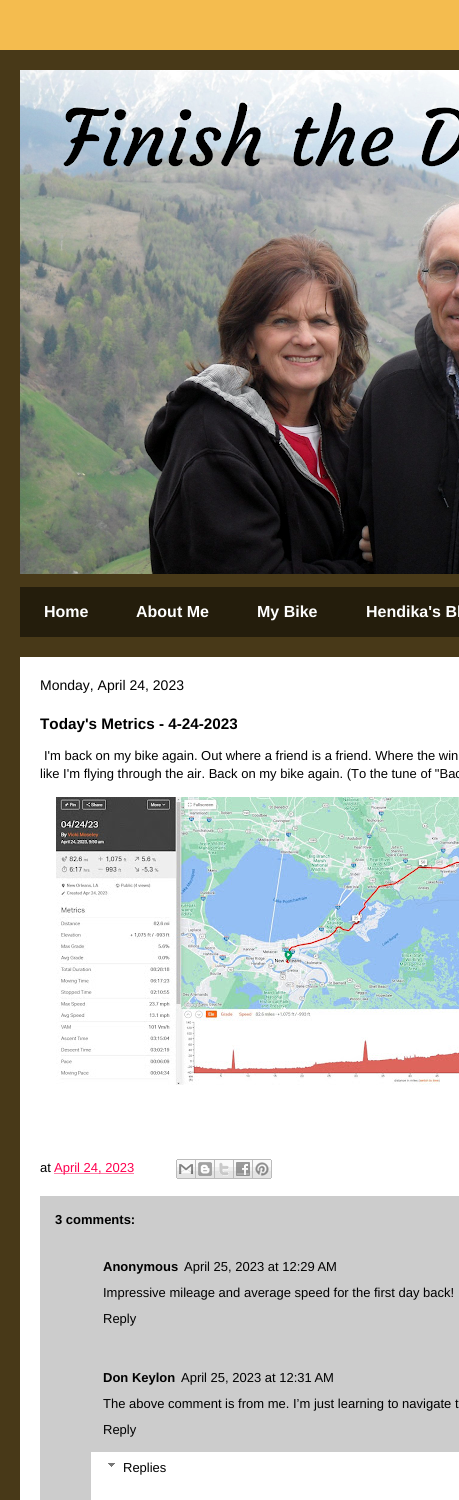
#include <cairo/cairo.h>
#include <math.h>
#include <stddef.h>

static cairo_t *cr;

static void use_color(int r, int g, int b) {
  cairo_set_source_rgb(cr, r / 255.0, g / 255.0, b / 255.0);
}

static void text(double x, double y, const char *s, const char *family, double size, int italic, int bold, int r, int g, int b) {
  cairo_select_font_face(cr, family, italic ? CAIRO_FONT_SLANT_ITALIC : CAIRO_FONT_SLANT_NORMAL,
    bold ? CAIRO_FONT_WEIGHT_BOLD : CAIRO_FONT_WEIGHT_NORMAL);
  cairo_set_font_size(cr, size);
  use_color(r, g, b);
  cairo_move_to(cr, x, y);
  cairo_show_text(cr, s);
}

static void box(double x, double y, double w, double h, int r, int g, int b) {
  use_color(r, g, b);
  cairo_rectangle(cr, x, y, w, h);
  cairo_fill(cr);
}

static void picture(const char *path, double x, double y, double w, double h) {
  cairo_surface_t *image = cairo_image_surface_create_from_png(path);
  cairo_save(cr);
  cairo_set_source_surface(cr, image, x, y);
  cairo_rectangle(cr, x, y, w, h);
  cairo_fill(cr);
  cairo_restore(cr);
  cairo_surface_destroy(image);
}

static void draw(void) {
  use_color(244, 188, 79);
  cairo_paint(cr);
  box(0, 50, 459, 1450, 72, 57, 24);
  picture("img_01.png", 20, 70, 439, 504);
  box(20, 587, 439, 50, 36, 29, 12);
  box(20, 657, 439, 843, 255, 255, 255);
  picture("img_02.png", 56, 797, 403, 288);
  cairo_new_path(cr);
  cairo_move_to(cr, 54.5, 1173.5);
  cairo_line_to(cr, 134.5, 1173.5);
  use_color(255, 0, 79);
  cairo_set_line_width(cr, 1);
  cairo_set_dash(cr, (double[]){1, 1}, 2, 0);
  cairo_stroke(cr);
  picture("img_03.png", 176, 1159, 20, 20);
  picture("img_04.png", 196, 1159, 19, 20);
  picture("img_05.png", 215, 1159, 19, 20);
  picture("img_06.png", 234, 1159, 19, 20);
  picture("img_07.png", 253, 1159, 19, 20);
  box(40, 1196, 419, 304, 204, 204, 204);
  box(91, 1452, 368, 48, 255, 255, 255);
  picture("img_08.png", 108, 1463, 7, 4);
  text(44, 617, "Home", "Liberation Sans", 16, 0, 1, 255, 255, 255);
  text(136, 617, "About Me", "Liberation Sans", 16, 0, 1, 255, 255, 255);
  text(257, 617, "My Bike", "Liberation Sans", 16, 0, 1, 255, 255, 255);
  text(366, 617, "Hendika's Bl", "Liberation Sans", 16, 0, 1, 255, 255, 255);
  text(40, 690, "Monday, April 24, 2023", "Liberation Sans", 14, 0, 0, 0, 0, 0);
  text(40, 729, "Today's Metrics - 4-24-2023", "Liberation Sans", 15.25, 0, 1, 0, 0, 0);
  text(44, 760, "I'm back on my bike again. Out where a friend is a friend. Where the win", "Liberation Sans", 13, 0, 0, 0, 0, 0);
  text(40, 778, "like I'm flying through the air. Back on my bike again. (To the tune of \"Bac", "Liberation Sans", 13, 0, 0, 0, 0, 0);
  text(40, 1172, "at", "Liberation Sans", 13, 0, 0, 0, 0, 0);
  text(54, 1172, "April 24, 2023", "Liberation Sans", 13, 0, 0, 255, 0, 79);
  text(55, 1224, "3 comments:", "Liberation Sans", 13, 0, 1, 0, 0, 0);
  text(103, 1271, "Anonymous", "Liberation Sans", 13, 0, 1, 0, 0, 0);
  text(184, 1271, "April 25, 2023 at 12:29 AM", "Liberation Sans", 13, 0, 0, 0, 0, 0);
  text(103, 1297, "Impressive mileage and average speed for the first day back!", "Liberation Sans", 13, 0, 0, 0, 0, 0);
  text(103, 1323, "Reply", "Liberation Sans", 13, 0, 0, 0, 0, 0);
  text(103, 1382, "Don Keylon", "Liberation Sans", 13, 0, 1, 0, 0, 0);
  text(181, 1382, "April 25, 2023 at 12:31 AM", "Liberation Sans", 13, 0, 0, 0, 0, 0);
  text(103, 1408, "The above comment is from me. I’m just learning to navigate t", "Liberation Sans", 13, 0, 0, 0, 0, 0);
  text(103, 1434, "Reply", "Liberation Sans", 13, 0, 0, 0, 0, 0);
  text(123, 1472, "Replies", "Liberation Sans", 13, 0, 0, 0, 0, 0);
}

int main(void) {
  cairo_surface_t *surface = cairo_image_surface_create(CAIRO_FORMAT_RGB24, 459, 1500);
  cr = cairo_create(surface);
  cairo_font_options_t *options = cairo_font_options_create();
  cairo_font_options_set_hint_metrics(options, CAIRO_HINT_METRICS_OFF);
  cairo_font_options_set_hint_style(options, CAIRO_HINT_STYLE_NONE);
  cairo_set_font_options(cr, options);
  cairo_set_miter_limit(cr, 4);
  draw();
  cairo_surface_write_to_png(surface, "out.png");
  cairo_font_options_destroy(options);
  cairo_destroy(cr);
  cairo_surface_destroy(surface);
  return 0;
}
